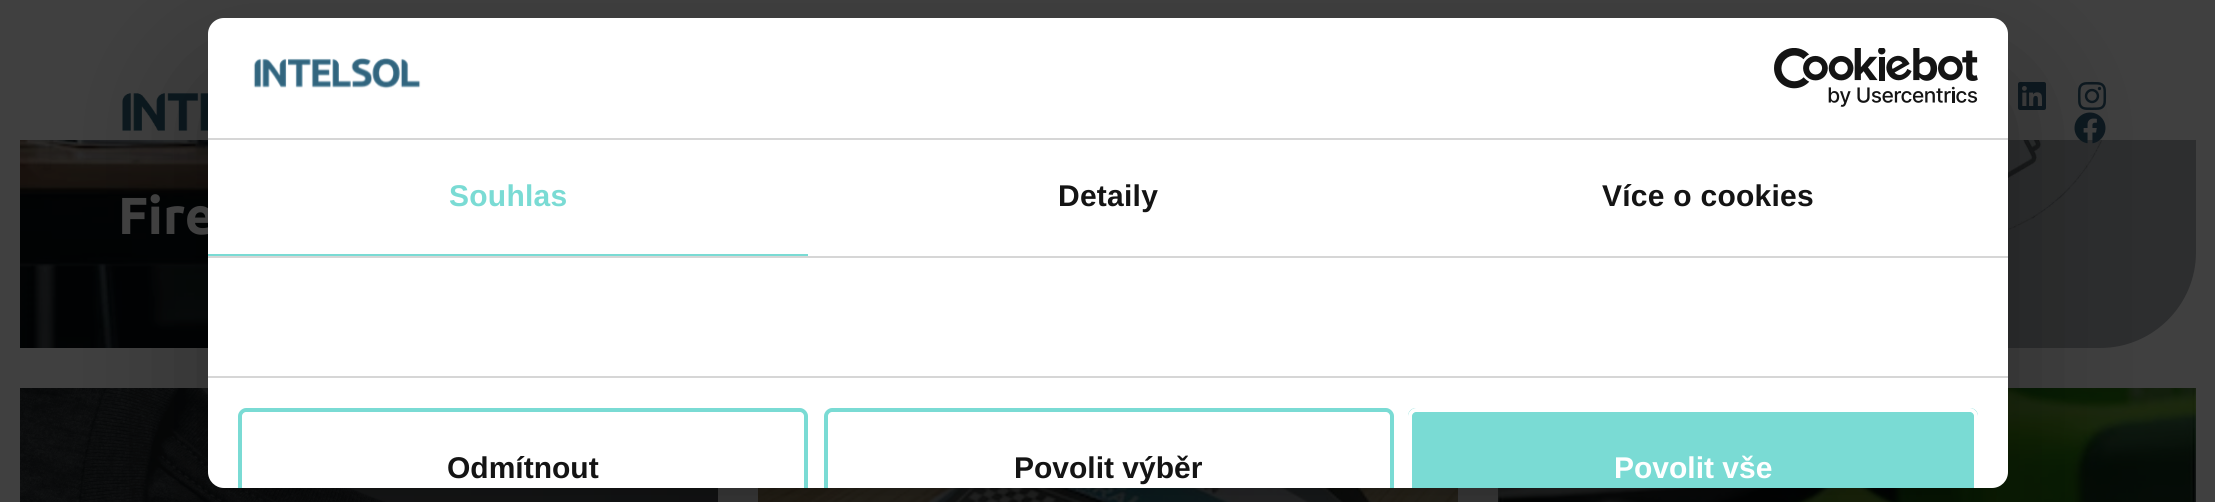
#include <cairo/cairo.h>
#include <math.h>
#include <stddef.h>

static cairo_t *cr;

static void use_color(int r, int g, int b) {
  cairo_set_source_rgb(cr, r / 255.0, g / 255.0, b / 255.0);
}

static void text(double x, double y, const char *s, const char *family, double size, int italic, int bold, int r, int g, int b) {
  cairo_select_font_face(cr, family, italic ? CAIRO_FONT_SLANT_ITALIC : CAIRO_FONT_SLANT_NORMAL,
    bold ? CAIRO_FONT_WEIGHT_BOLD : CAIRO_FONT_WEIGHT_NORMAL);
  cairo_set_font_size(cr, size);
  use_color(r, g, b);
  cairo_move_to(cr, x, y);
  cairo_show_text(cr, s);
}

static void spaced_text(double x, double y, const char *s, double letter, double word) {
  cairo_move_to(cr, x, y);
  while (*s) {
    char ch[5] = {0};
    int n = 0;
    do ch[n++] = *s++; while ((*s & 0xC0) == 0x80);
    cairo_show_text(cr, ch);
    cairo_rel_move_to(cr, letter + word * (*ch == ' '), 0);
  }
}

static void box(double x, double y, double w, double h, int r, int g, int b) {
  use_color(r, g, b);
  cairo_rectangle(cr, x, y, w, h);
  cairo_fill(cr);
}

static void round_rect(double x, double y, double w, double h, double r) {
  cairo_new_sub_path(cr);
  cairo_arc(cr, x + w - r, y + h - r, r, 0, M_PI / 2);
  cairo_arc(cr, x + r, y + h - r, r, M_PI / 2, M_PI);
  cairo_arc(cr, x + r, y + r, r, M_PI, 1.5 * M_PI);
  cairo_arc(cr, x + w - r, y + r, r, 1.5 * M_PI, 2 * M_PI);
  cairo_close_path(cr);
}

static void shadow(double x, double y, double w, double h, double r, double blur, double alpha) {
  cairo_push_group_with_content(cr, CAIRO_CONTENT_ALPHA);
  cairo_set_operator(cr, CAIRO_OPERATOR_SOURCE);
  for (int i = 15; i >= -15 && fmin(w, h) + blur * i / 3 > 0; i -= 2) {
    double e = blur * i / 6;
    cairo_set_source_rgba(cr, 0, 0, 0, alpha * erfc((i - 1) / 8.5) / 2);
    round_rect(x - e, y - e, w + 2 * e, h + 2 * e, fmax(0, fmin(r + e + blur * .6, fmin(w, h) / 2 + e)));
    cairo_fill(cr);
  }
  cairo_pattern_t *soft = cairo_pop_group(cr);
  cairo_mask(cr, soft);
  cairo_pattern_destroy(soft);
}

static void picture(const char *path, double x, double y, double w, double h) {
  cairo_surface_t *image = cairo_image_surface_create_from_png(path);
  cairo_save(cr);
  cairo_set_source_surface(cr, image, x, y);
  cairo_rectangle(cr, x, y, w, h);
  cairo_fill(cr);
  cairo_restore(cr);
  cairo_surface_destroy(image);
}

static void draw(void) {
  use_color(64, 64, 64);
  cairo_paint(cr);
  picture("img_06.png", 2008, 140, 94, 90);
  cairo_set_source_rgba(cr, 0.016, 0.031, 0.039, 0.32);
  cairo_new_path(cr);
  cairo_move_to(cr, 1498, -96);
  cairo_line_to(cr, 2196, -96);
  cairo_line_to(cr, 2196, 252);
  cairo_curve_to(cr, 2196, 305, 2153, 348, 2100, 348);
  cairo_line_to(cr, 1498, 348);
  cairo_close_path(cr);
  cairo_fill(cr);
  box(1498, 0, 698, 140, 64, 64, 64);
  picture("img_01.png", 122, 93, 86, 38);
  picture("img_02.png", 2018, 82, 28, 28);
  picture("img_03.png", 2078, 81, 29, 29);
  picture("img_04.png", 2074, 112, 32, 32);
  picture("img_05.png", 20, 140, 188, 208);
  cairo_set_source_rgba(cr, 0.016, 0.031, 0.039, 0.32);
  cairo_rectangle(cr, 20, 140, 188, 208);
  cairo_fill(cr);
  picture("img_07.png", 20, 388, 698, 114);
  picture("img_08.png", 758, 488, 700, 14);
  picture("img_09.png", 1498, 388, 698, 114);
  use_color(0, 0, 0);
  shadow(208, 82, 1800, 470, 16, 68, 0.3);
  text(118, 234, "Fire", "Ubuntu", 52, 0, 1, 64, 64, 64);
  use_color(255, 255, 255);
  round_rect(208, 18, 1800, 470, 16);
  cairo_fill(cr);
  box(208, 138, 1800, 2, 214, 214, 214);
  picture("img_10.png", 253, 58, 168, 31);
  picture("img_11.png", 1774, 48, 204, 59);
  box(208, 256, 1800, 2, 214, 214, 214);
  box(208, 254, 600, 2, 122, 219, 212);
  cairo_select_font_face(cr, "Liberation Sans", CAIRO_FONT_SLANT_NORMAL, CAIRO_FONT_WEIGHT_BOLD);
  cairo_set_font_size(cr, 30);
  spaced_text(449, 206, "Souhlas", 0.25, 0);
  use_color(20, 20, 20);
  spaced_text(1058, 206, "Detaily", 0.25, 0);
  spaced_text(1602, 206, "Více o cookies", 0.25, 0);
  box(208, 376, 1800, 2, 214, 214, 214);
  use_color(122, 219, 212);
  cairo_new_path(cr);
  cairo_move_to(cr, 246, 408);
  cairo_curve_to(cr, 242, 408, 238, 412, 238, 416);
  cairo_line_to(cr, 238, 488);
  cairo_line_to(cr, 242, 488);
  cairo_line_to(cr, 242, 416);
  cairo_curve_to(cr, 242, 414, 244, 412, 246, 412);
  cairo_line_to(cr, 800, 412);
  cairo_curve_to(cr, 802, 412, 804, 414, 804, 416);
  cairo_line_to(cr, 804, 488);
  cairo_line_to(cr, 808, 488);
  cairo_line_to(cr, 808, 416);
  cairo_curve_to(cr, 808, 412, 804, 408, 800, 408);
  cairo_close_path(cr);
  cairo_fill(cr);
  text(447, 478, "Odmítnout", "Liberation Sans", 30, 0, 1, 20, 20, 20);
  use_color(122, 219, 212);
  cairo_new_path(cr);
  cairo_move_to(cr, 832, 408);
  cairo_curve_to(cr, 828, 408, 824, 412, 824, 416);
  cairo_line_to(cr, 824, 488);
  cairo_line_to(cr, 828, 488);
  cairo_line_to(cr, 828, 416);
  cairo_curve_to(cr, 828, 414, 830, 412, 832, 412);
  cairo_line_to(cr, 1386, 412);
  cairo_curve_to(cr, 1388, 412, 1390, 414, 1390, 416);
  cairo_line_to(cr, 1390, 488);
  cairo_line_to(cr, 1394, 488);
  cairo_line_to(cr, 1394, 416);
  cairo_curve_to(cr, 1394, 412, 1390, 408, 1386, 408);
  cairo_close_path(cr);
  cairo_fill(cr);
  text(1014, 478, "Povolit výběr", "Liberation Sans", 30, 0, 1, 20, 20, 20);
  use_color(122, 219, 212);
  cairo_new_path(cr);
  cairo_move_to(cr, 1416, 408);
  cairo_line_to(cr, 1970, 408);
  cairo_curve_to(cr, 1974.5, 408, 1978, 411.5, 1978, 416);
  cairo_line_to(cr, 1978, 488);
  cairo_line_to(cr, 1408, 488);
  cairo_line_to(cr, 1408, 416);
  cairo_curve_to(cr, 1408, 411.5, 1411.5, 408, 1416, 408);
  cairo_close_path(cr);
  cairo_fill(cr);
  use_color(255, 255, 255);
  cairo_new_path(cr);
  cairo_move_to(cr, 1416, 408);
  cairo_curve_to(cr, 1412, 408, 1408, 412, 1408, 416);
  cairo_line_to(cr, 1408, 488);
  cairo_line_to(cr, 1412, 488);
  cairo_line_to(cr, 1412, 416);
  cairo_curve_to(cr, 1412, 414, 1414, 412, 1416, 412);
  cairo_line_to(cr, 1970, 412);
  cairo_curve_to(cr, 1972, 412, 1974, 414, 1974, 416);
  cairo_line_to(cr, 1974, 488);
  cairo_line_to(cr, 1978, 488);
  cairo_line_to(cr, 1978, 416);
  cairo_curve_to(cr, 1978, 412, 1974, 408, 1970, 408);
  cairo_close_path(cr);
  cairo_fill(cr);
  text(1614, 478, "Povolit vše", "Liberation Sans", 30, 0, 1, 255, 255, 255);
}

int main(void) {
  cairo_surface_t *surface = cairo_image_surface_create(CAIRO_FORMAT_RGB24, 2215, 502);
  cr = cairo_create(surface);
  cairo_font_options_t *options = cairo_font_options_create();
  cairo_font_options_set_hint_metrics(options, CAIRO_HINT_METRICS_OFF);
  cairo_font_options_set_hint_style(options, CAIRO_HINT_STYLE_NONE);
  cairo_set_font_options(cr, options);
  cairo_set_miter_limit(cr, 4);
  draw();
  cairo_surface_write_to_png(surface, "out.png");
  cairo_font_options_destroy(options);
  cairo_destroy(cr);
  cairo_surface_destroy(surface);
  return 0;
}
